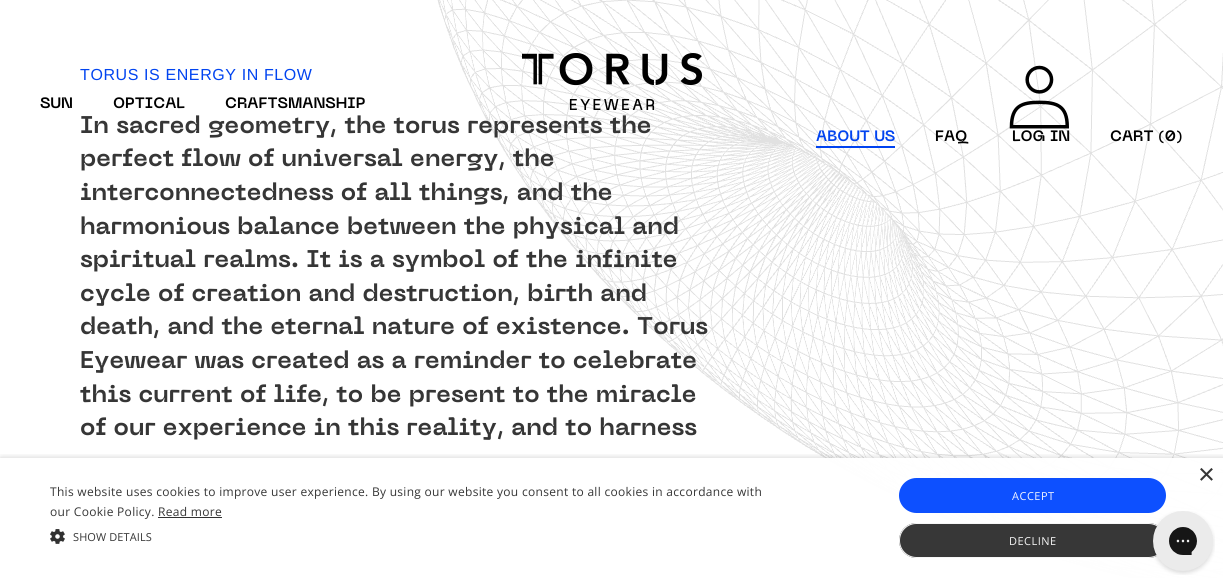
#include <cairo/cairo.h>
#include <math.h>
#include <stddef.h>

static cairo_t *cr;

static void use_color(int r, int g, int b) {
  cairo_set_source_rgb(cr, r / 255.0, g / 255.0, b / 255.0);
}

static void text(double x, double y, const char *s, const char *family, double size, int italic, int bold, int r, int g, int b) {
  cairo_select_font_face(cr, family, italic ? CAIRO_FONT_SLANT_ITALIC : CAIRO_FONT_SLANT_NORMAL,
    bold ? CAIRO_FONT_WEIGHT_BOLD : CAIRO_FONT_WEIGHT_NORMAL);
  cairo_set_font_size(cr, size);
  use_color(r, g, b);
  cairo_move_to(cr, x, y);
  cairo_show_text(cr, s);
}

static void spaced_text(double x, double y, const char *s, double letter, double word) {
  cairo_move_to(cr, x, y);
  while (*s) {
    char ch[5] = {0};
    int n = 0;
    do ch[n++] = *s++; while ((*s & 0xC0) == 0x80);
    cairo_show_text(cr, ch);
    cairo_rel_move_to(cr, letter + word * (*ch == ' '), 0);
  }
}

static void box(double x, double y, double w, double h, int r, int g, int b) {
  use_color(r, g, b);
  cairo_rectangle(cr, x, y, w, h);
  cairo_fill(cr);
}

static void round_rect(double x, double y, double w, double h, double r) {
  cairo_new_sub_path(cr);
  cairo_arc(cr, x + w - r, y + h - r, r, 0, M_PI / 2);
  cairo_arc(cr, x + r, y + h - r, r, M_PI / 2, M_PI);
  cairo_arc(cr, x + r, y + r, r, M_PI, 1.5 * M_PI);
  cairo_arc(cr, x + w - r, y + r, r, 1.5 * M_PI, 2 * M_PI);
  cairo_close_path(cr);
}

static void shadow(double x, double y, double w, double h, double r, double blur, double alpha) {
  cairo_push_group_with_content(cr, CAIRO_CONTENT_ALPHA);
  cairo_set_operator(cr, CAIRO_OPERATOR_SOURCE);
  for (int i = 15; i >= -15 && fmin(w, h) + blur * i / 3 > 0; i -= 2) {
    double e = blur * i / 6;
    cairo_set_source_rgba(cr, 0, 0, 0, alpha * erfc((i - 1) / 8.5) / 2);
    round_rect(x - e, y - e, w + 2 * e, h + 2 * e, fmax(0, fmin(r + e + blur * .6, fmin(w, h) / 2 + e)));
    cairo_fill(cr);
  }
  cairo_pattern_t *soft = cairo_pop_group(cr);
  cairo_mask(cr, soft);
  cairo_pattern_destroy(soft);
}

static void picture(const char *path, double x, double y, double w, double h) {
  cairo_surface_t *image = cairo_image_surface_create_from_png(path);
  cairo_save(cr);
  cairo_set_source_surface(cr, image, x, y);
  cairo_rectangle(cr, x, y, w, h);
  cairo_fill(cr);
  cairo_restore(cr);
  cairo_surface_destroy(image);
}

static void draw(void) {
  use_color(255, 255, 255);
  cairo_paint(cr);
  picture("img_01.png", 437, 0, 786, 578);
  picture("img_02.png", 522, 53, 180, 57);
  box(816, 146, 79, 2, 0, 67, 240);
  picture("img_03.png", 1009, 65, 60, 64);
  cairo_save(cr);
  cairo_rectangle(cr, 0, 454, 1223, 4);
  cairo_clip(cr);
  use_color(0, 0, 0);
  shadow(1, 460, 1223, 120, 0, 4, 0.33);
  cairo_restore(cr);
  cairo_set_source_rgba(cr, 1, 1, 1, 0.95);
  cairo_rectangle(cr, 825, 458, 398, 120);
  cairo_fill(cr);
  picture("img_04.png", 50, 529, 15, 15);
  use_color(13, 80, 255);
  round_rect(899, 478, 267, 35, 17.5);
  cairo_fill(cr);
  use_color(55, 55, 55);
  round_rect(899, 523, 267, 35, 17.5);
  cairo_fill(cr);
  round_rect(899.5, 523.5, 266, 34, 17);
  cairo_set_source_rgba(cr, 1, 1, 1, 0.95);
  cairo_set_line_width(cr, 1);
  cairo_stroke(cr);
  picture("img_05.png", 1153, 511, 62, 64);
  cairo_select_font_face(cr, "Liberation Sans", CAIRO_FONT_SLANT_NORMAL, CAIRO_FONT_WEIGHT_NORMAL);
  cairo_set_font_size(cr, 16);
  use_color(1, 68, 240);
  spaced_text(80, 80, "TORUS IS ENERGY IN FLOW", 0.6, 0);
  text(80, 133, "In sacred geometry, the torus represents the", "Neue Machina", 24, 0, 1, 54, 54, 54);
  text(80, 166, "perfect flow of universal energy, the", "Neue Machina", 24, 0, 1, 54, 54, 54);
  text(80, 200, "interconnectedness of all things, and the", "Neue Machina", 24, 0, 1, 54, 54, 54);
  text(80, 234, "harmonious balance between the physical and", "Neue Machina", 24, 0, 1, 54, 54, 54);
  text(80, 267, "spiritual realms. It is a symbol of the infinite", "Neue Machina", 24, 0, 1, 54, 54, 54);
  text(80, 301, "cycle of creation and destruction, birth and", "Neue Machina", 24, 0, 1, 54, 54, 54);
  text(80, 334, "death, and the eternal nature of existence. Torus", "Neue Machina", 24, 0, 1, 54, 54, 54);
  text(80, 368, "Eyewear was created as a reminder to celebrate", "Neue Machina", 24, 0, 1, 54, 54, 54);
  text(80, 402, "this current of life, to be present to the miracle", "Neue Machina", 24, 0, 1, 54, 54, 54);
  text(80, 435, "of our experience in this reality, and to harness", "Neue Machina", 24, 0, 1, 54, 54, 54);
  text(40, 108, "SUN", "Neue Machina", 15, 0, 1, 0, 0, 0);
  text(113, 108, "OPTICAL", "Neue Machina", 15, 0, 1, 0, 0, 0);
  text(225, 108, "CRAFTSMANSHIP", "Neue Machina", 15, 0, 1, 0, 0, 0);
  text(816, 141, "ABOUT US", "Neue Machina", 15, 0, 1, 1, 68, 240);
  text(935, 141, "FAQ", "Neue Machina", 15, 0, 1, 0, 0, 0);
  text(1012, 141, "LOG IN", "Neue Machina", 15, 0, 1, 0, 0, 0);
  text(1110, 141, "CART (0)", "Neue Machina", 15, 0, 1, 0, 0, 0);
  text(1198, 484, "×", "Liberation Sans", 29, 0, 0, 54, 54, 54);
  cairo_select_font_face(cr, "Open Sans", CAIRO_FONT_SLANT_NORMAL, CAIRO_FONT_WEIGHT_NORMAL);
  cairo_set_font_size(cr, 12);
  spaced_text(50, 496, "This website uses cookies to improve user experience. By using our website you consent to all cookies in accordance with", 0.3, 0);
  spaced_text(50, 516, "our Cookie Policy. Read more", 0.3, 0);
  box(158, 517, 64, 1, 49, 49, 49);
  cairo_set_font_size(cr, 11);
  use_color(54, 54, 54);
  spaced_text(73, 541, "SHOW DETAILS", 0.1, 0);
  use_color(243, 246, 255);
  spaced_text(1012, 500, "ACCEPT", 0.5, 0);
  use_color(245, 245, 245);
  spaced_text(1009, 545, "DECLINE", 0.5, 0);
}

int main(void) {
  cairo_surface_t *surface = cairo_image_surface_create(CAIRO_FORMAT_RGB24, 1223, 578);
  cr = cairo_create(surface);
  cairo_font_options_t *options = cairo_font_options_create();
  cairo_font_options_set_hint_metrics(options, CAIRO_HINT_METRICS_OFF);
  cairo_font_options_set_hint_style(options, CAIRO_HINT_STYLE_NONE);
  cairo_set_font_options(cr, options);
  cairo_set_miter_limit(cr, 4);
  draw();
  cairo_surface_write_to_png(surface, "out.png");
  cairo_font_options_destroy(options);
  cairo_destroy(cr);
  cairo_surface_destroy(surface);
  return 0;
}
